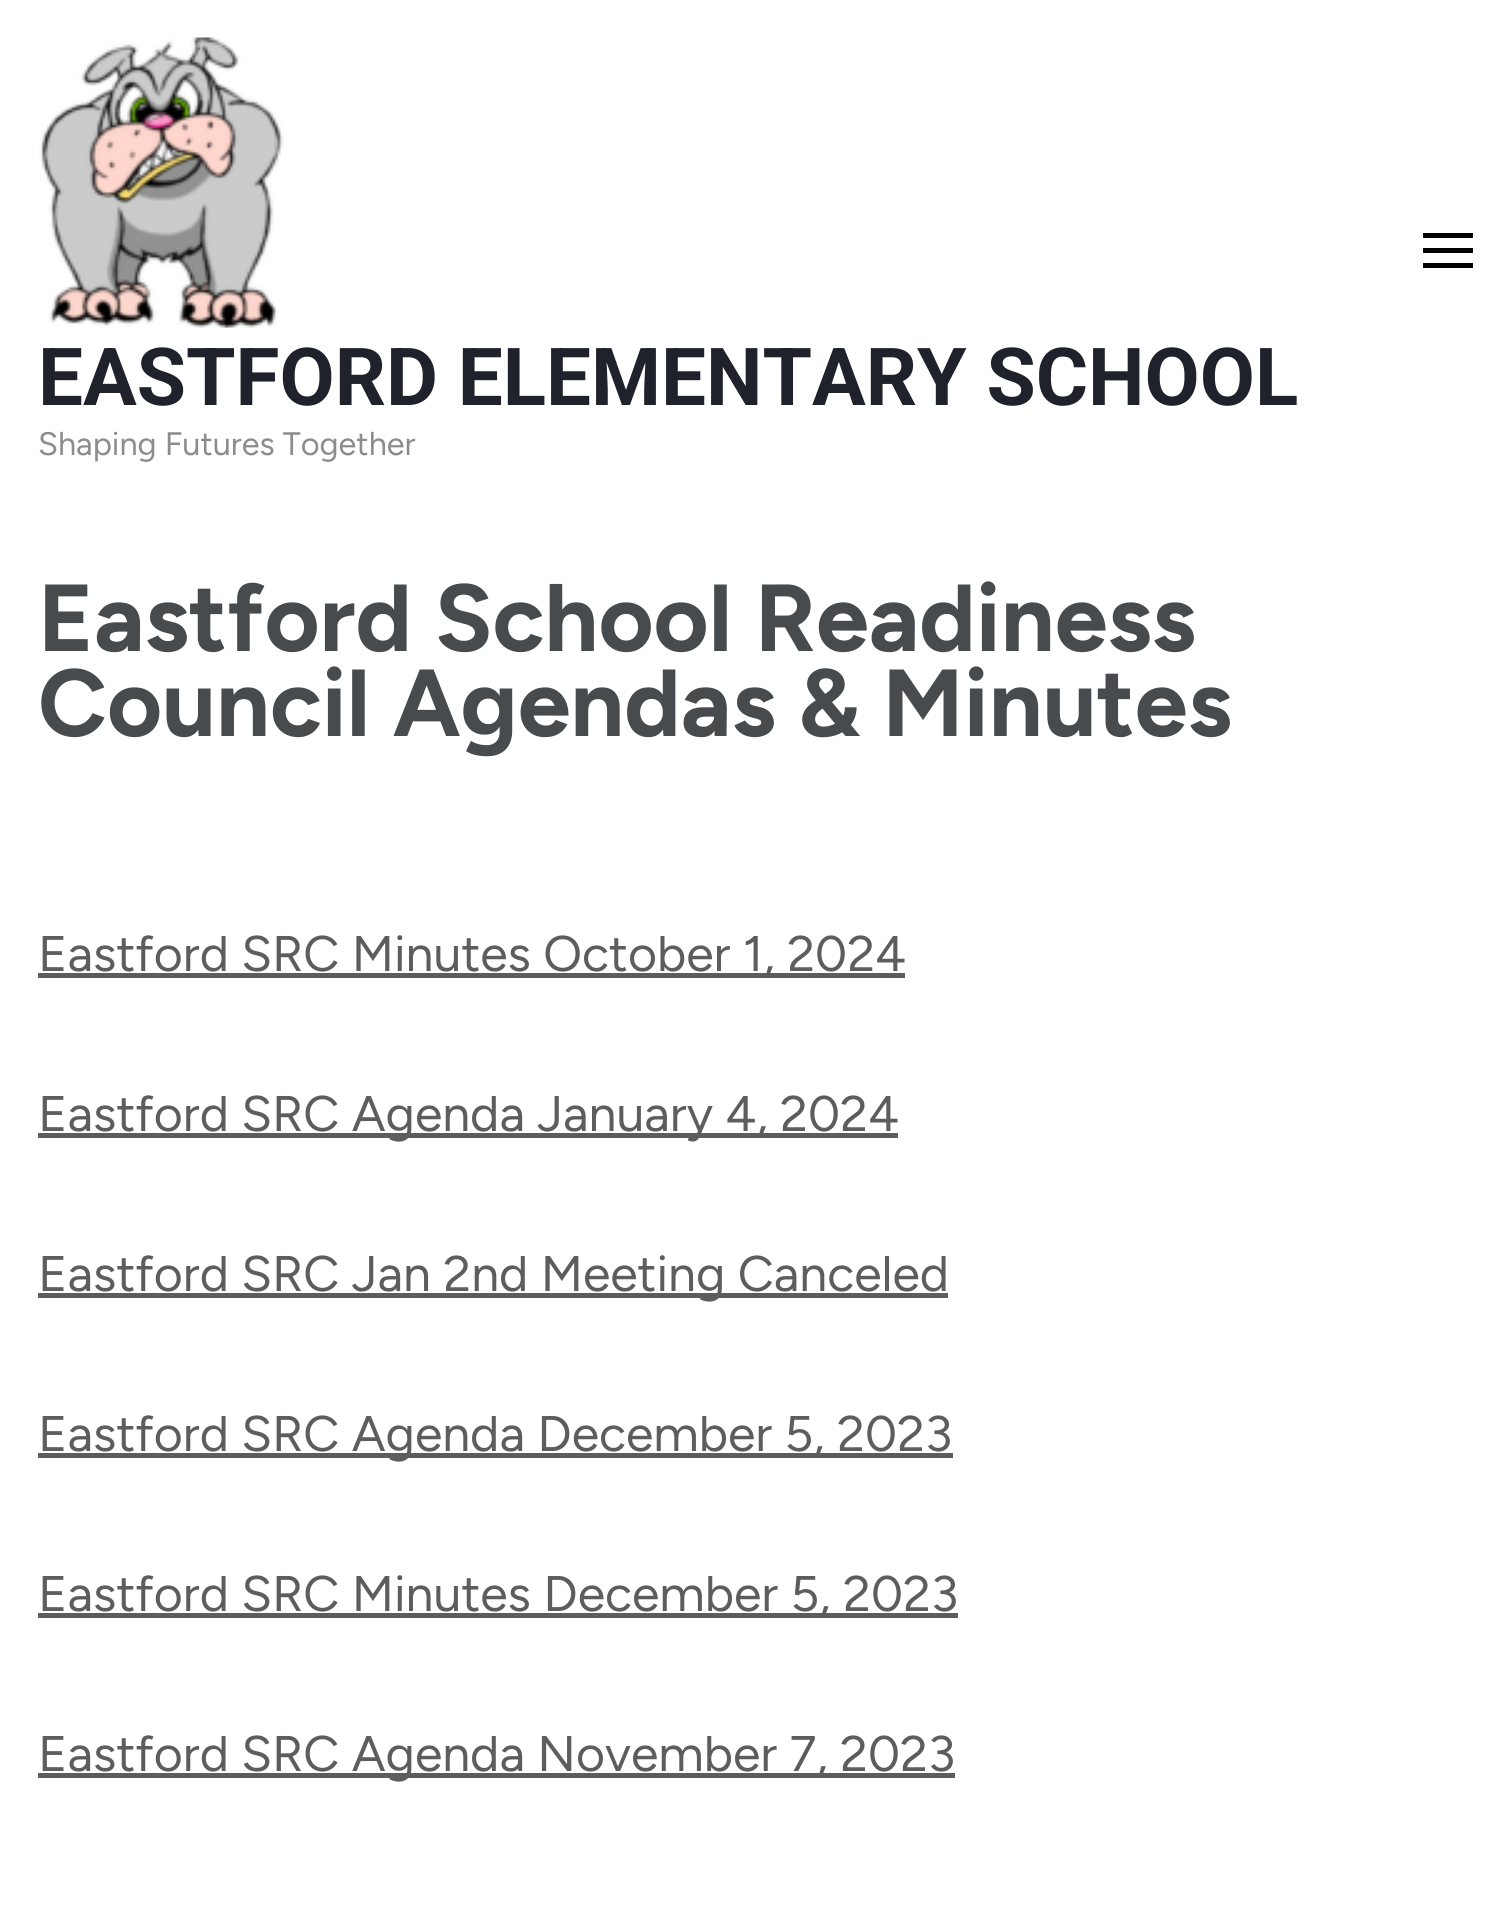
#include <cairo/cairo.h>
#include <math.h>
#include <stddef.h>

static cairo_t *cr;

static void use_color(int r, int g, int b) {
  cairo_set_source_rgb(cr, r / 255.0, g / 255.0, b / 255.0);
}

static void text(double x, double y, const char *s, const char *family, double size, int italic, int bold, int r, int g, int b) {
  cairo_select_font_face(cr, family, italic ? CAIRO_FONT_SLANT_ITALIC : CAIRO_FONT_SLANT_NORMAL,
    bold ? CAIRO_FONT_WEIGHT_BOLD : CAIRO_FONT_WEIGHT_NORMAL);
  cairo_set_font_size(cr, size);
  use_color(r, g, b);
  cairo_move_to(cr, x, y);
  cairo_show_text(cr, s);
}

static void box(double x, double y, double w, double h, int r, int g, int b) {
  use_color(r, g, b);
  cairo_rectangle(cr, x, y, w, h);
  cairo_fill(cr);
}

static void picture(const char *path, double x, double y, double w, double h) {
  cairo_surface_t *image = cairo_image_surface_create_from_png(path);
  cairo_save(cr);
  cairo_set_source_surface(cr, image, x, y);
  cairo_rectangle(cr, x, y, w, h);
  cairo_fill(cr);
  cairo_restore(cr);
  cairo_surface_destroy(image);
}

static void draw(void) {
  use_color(255, 255, 255);
  cairo_paint(cr);
  box(1423, 233, 50, 5, 0, 0, 0);
  box(1423, 248, 50, 5, 0, 0, 0);
  box(1423, 263, 50, 5, 0, 0, 0);
  picture("img_01.png", 39, 37, 245, 291);
  box(38, 973, 867, 5, 93, 93, 93);
  box(38, 1133, 860, 5, 93, 93, 93);
  box(38, 1293, 910, 5, 93, 93, 93);
  box(38, 1453, 915, 5, 93, 93, 93);
  box(38, 1613, 920, 5, 93, 93, 93);
  box(38, 1773, 917, 5, 93, 93, 93);
  text(38, 405, "EASTFORD ELEMENTARY SCHOOL", "Roboto", 80, 0, 1, 31, 33, 43);
  text(38, 455, "Shaping Futures Together", "Figtree", 32.5, 0, 0, 140, 140, 140);
  text(38, 651, "Eastford School Readiness", "Figtree", 95, 0, 1, 71, 75, 78);
  text(38, 736, "Council Agendas & Minutes", "Figtree", 95, 0, 1, 71, 75, 78);
  text(38, 971, "Eastford SRC Minutes October 1, 2024", "Figtree", 50, 0, 0, 93, 93, 93);
  text(38, 1131, "Eastford SRC Agenda January 4, 2024", "Figtree", 50, 0, 0, 93, 93, 93);
  text(38, 1291, "Eastford SRC Jan 2nd Meeting Canceled", "Figtree", 50, 0, 0, 93, 93, 93);
  text(38, 1451, "Eastford SRC Agenda December 5, 2023", "Figtree", 50, 0, 0, 93, 93, 93);
  text(38, 1611, "Eastford SRC Minutes December 5, 2023", "Figtree", 50, 0, 0, 93, 93, 93);
  text(38, 1771, "Eastford SRC Agenda November 7, 2023", "Figtree", 50, 0, 0, 93, 93, 93);
}

int main(void) {
  cairo_surface_t *surface = cairo_image_surface_create(CAIRO_FORMAT_RGB24, 1510, 1917);
  cr = cairo_create(surface);
  cairo_font_options_t *options = cairo_font_options_create();
  cairo_font_options_set_hint_metrics(options, CAIRO_HINT_METRICS_OFF);
  cairo_font_options_set_hint_style(options, CAIRO_HINT_STYLE_NONE);
  cairo_set_font_options(cr, options);
  cairo_set_miter_limit(cr, 4);
  draw();
  cairo_surface_write_to_png(surface, "out.png");
  cairo_font_options_destroy(options);
  cairo_destroy(cr);
  cairo_surface_destroy(surface);
  return 0;
}
